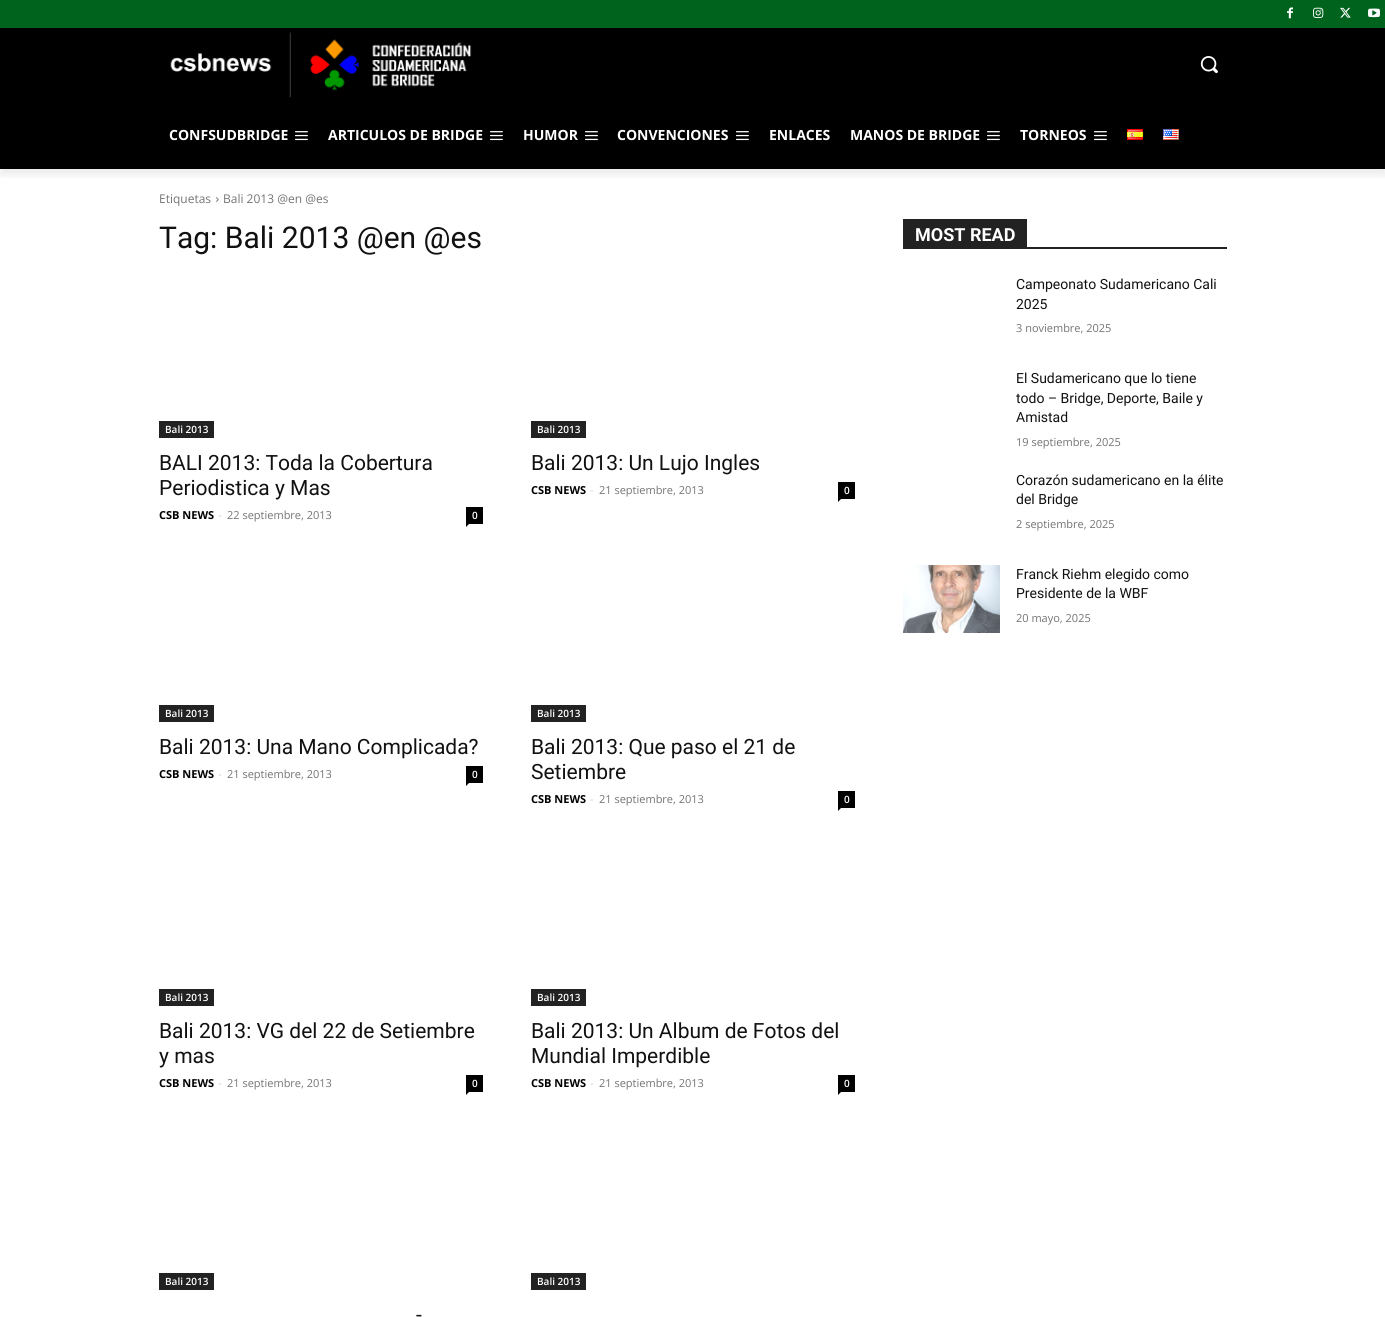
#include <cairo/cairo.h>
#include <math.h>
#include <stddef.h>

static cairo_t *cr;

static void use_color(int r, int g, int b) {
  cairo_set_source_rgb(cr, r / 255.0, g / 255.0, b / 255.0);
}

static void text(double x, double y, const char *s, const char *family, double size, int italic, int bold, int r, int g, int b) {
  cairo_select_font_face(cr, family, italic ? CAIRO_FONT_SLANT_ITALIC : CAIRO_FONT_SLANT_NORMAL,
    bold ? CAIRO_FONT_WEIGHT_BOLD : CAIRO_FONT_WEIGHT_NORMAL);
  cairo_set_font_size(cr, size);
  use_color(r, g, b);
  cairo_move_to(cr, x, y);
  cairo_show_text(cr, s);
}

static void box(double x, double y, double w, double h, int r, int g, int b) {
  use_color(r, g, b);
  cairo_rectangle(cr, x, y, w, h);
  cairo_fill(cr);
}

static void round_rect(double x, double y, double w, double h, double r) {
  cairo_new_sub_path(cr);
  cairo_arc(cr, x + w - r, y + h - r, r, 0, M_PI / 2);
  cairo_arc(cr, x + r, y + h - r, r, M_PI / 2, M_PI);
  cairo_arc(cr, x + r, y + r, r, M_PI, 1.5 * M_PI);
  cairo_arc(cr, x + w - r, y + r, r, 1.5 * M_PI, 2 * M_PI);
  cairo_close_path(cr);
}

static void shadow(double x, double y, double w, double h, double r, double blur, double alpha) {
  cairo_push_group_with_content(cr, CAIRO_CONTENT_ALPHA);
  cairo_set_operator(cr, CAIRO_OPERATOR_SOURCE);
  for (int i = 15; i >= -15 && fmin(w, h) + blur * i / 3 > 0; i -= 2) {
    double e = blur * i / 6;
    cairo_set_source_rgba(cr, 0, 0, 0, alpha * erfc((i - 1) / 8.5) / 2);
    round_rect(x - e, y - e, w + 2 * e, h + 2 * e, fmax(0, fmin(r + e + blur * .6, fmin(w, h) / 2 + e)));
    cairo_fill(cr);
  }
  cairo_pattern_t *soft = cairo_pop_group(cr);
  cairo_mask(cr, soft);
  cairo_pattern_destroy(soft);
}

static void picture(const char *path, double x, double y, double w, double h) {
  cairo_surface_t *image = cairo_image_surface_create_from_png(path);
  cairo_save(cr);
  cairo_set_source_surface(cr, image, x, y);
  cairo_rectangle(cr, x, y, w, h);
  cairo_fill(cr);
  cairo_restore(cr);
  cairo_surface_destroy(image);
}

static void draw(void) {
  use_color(255, 255, 255);
  cairo_paint(cr);
  box(0, 0, 1385, 28, 0, 99, 29);
  picture("img_01.png", 1287, 7, 6, 12);
  picture("img_02.png", 1313, 7, 11, 11);
  picture("img_03.png", 1340, 7, 11, 11);
  picture("img_04.png", 1368, 8, 12, 10);
  box(0, 28, 1385, 141, 0, 0, 0);
  picture("img_05.png", 170, 32, 302, 66);
  cairo_save(cr);
  cairo_rectangle(cr, 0, 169, 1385, 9);
  cairo_clip(cr);
  use_color(0, 0, 0);
  shadow(1, 6, 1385, 169, 0, 4, 0.08);
  cairo_restore(cr);
  picture("img_06.png", 1200, 56, 18, 18);
  picture("img_07.png", 295, 131, 13, 10);
  picture("img_07.png", 490, 131, 13, 10);
  picture("img_07.png", 585, 131, 13, 10);
  picture("img_07.png", 736, 131, 13, 10);
  picture("img_07.png", 987, 131, 13, 10);
  picture("img_07.png", 1094, 131, 13, 10);
  picture("img_08.png", 1127, 129, 16, 11);
  picture("img_09.png", 1163, 129, 16, 11);
  picture("img_10.png", 216, 197, 3, 5);
  box(159, 421, 55, 17, 34, 34, 34);
  box(466, 507, 17, 17, 0, 0, 0);
  cairo_new_path(cr);
  cairo_move_to(cr, 466, 524);
  cairo_line_to(cr, 469, 524);
  cairo_line_to(cr, 466, 527);
  cairo_close_path(cr);
  cairo_fill(cr);
  box(531, 421, 55, 17, 34, 34, 34);
  box(838, 482, 17, 17, 0, 0, 0);
  cairo_new_path(cr);
  cairo_move_to(cr, 838, 499);
  cairo_line_to(cr, 841, 499);
  cairo_line_to(cr, 838, 502);
  cairo_close_path(cr);
  cairo_fill(cr);
  box(159, 705, 55, 17, 34, 34, 34);
  box(466, 766, 17, 17, 0, 0, 0);
  cairo_new_path(cr);
  cairo_move_to(cr, 466, 783);
  cairo_line_to(cr, 469, 783);
  cairo_line_to(cr, 466, 786);
  cairo_close_path(cr);
  cairo_fill(cr);
  box(531, 705, 55, 17, 34, 34, 34);
  box(838, 791, 17, 17, 0, 0, 0);
  cairo_new_path(cr);
  cairo_move_to(cr, 838, 808);
  cairo_line_to(cr, 841, 808);
  cairo_line_to(cr, 838, 811);
  cairo_close_path(cr);
  cairo_fill(cr);
  box(159, 989, 55, 17, 34, 34, 34);
  box(466, 1075, 17, 17, 0, 0, 0);
  cairo_new_path(cr);
  cairo_move_to(cr, 466, 1092);
  cairo_line_to(cr, 469, 1092);
  cairo_line_to(cr, 466, 1095);
  cairo_close_path(cr);
  cairo_fill(cr);
  box(531, 989, 55, 17, 34, 34, 34);
  box(838, 1075, 17, 17, 0, 0, 0);
  cairo_new_path(cr);
  cairo_move_to(cr, 838, 1092);
  cairo_line_to(cr, 841, 1092);
  cairo_line_to(cr, 838, 1095);
  cairo_close_path(cr);
  cairo_fill(cr);
  box(159, 1273, 55, 17, 34, 34, 34);
  box(531, 1273, 55, 17, 34, 34, 34);
  box(903, 247, 324, 2, 34, 34, 34);
  box(903, 219, 124, 28, 34, 34, 34);
  picture("img_11.png", 903, 565, 97, 68);
  text(169, 140, "CONFSUDBRIDGE", "Open Sans", 14, 0, 1, 255, 255, 255);
  text(328, 140, "ARTICULOS DE BRIDGE", "Open Sans", 14, 0, 1, 255, 255, 255);
  text(523, 140, "HUMOR", "Open Sans", 14, 0, 1, 255, 255, 255);
  text(617, 140, "CONVENCIONES", "Open Sans", 14, 0, 1, 255, 255, 255);
  text(769, 140, "ENLACES", "Open Sans", 14, 0, 1, 255, 255, 255);
  text(850, 140, "MANOS DE BRIDGE", "Open Sans", 14, 0, 1, 255, 255, 255);
  text(1020, 140, "TORNEOS", "Open Sans", 14, 0, 1, 255, 255, 255);
  text(159, 203, "Etiquetas", "Open Sans", 12, 0, 0, 116, 116, 116);
  text(223, 203, "Bali 2013 @en @es", "Open Sans", 12, 0, 0, 116, 116, 116);
  text(159, 248, "Tag: Bali 2013 @en @es", "Roboto", 30, 0, 0, 17, 17, 17);
  text(165, 433, "Bali 2013", "Open Sans SemiBold", 10, 0, 0, 255, 255, 255);
  text(159, 470, "BALI 2013: Toda la Cobertura", "Roboto", 21, 0, 0, 17, 17, 17);
  text(159, 495, "Periodistica y Mas", "Roboto", 21, 0, 0, 17, 17, 17);
  text(159, 519, "CSB NEWS", "Open Sans", 11, 0, 1, 0, 0, 0);
  text(218, 519, "-", "Open Sans", 11, 0, 0, 204, 204, 204);
  text(227, 519, "22 septiembre, 2013", "Open Sans", 11, 0, 0, 116, 116, 116);
  text(472, 519, "0", "Open Sans SemiBold", 10, 0, 0, 255, 255, 255);
  text(537, 433, "Bali 2013", "Open Sans SemiBold", 10, 0, 0, 255, 255, 255);
  text(531, 470, "Bali 2013: Un Lujo Ingles", "Roboto", 21, 0, 0, 17, 17, 17);
  text(531, 494, "CSB NEWS", "Open Sans", 11, 0, 1, 0, 0, 0);
  text(590, 494, "-", "Open Sans", 11, 0, 0, 204, 204, 204);
  text(599, 494, "21 septiembre, 2013", "Open Sans", 11, 0, 0, 116, 116, 116);
  text(844, 494, "0", "Open Sans SemiBold", 10, 0, 0, 255, 255, 255);
  text(165, 717, "Bali 2013", "Open Sans SemiBold", 10, 0, 0, 255, 255, 255);
  text(159, 754, "Bali 2013: Una Mano Complicada?", "Roboto", 21, 0, 0, 17, 17, 17);
  text(159, 778, "CSB NEWS", "Open Sans", 11, 0, 1, 0, 0, 0);
  text(218, 778, "-", "Open Sans", 11, 0, 0, 204, 204, 204);
  text(227, 778, "21 septiembre, 2013", "Open Sans", 11, 0, 0, 116, 116, 116);
  text(472, 778, "0", "Open Sans SemiBold", 10, 0, 0, 255, 255, 255);
  text(537, 717, "Bali 2013", "Open Sans SemiBold", 10, 0, 0, 255, 255, 255);
  text(531, 754, "Bali 2013: Que paso el 21 de", "Roboto", 21, 0, 0, 17, 17, 17);
  text(531, 779, "Setiembre", "Roboto", 21, 0, 0, 17, 17, 17);
  text(531, 803, "CSB NEWS", "Open Sans", 11, 0, 1, 0, 0, 0);
  text(590, 803, "-", "Open Sans", 11, 0, 0, 204, 204, 204);
  text(599, 803, "21 septiembre, 2013", "Open Sans", 11, 0, 0, 116, 116, 116);
  text(844, 803, "0", "Open Sans SemiBold", 10, 0, 0, 255, 255, 255);
  text(165, 1001, "Bali 2013", "Open Sans SemiBold", 10, 0, 0, 255, 255, 255);
  text(159, 1038, "Bali 2013: VG del 22 de Setiembre", "Roboto", 21, 0, 0, 17, 17, 17);
  text(159, 1063, "y mas", "Roboto", 21, 0, 0, 17, 17, 17);
  text(159, 1087, "CSB NEWS", "Open Sans", 11, 0, 1, 0, 0, 0);
  text(218, 1087, "-", "Open Sans", 11, 0, 0, 204, 204, 204);
  text(227, 1087, "21 septiembre, 2013", "Open Sans", 11, 0, 0, 116, 116, 116);
  text(472, 1087, "0", "Open Sans SemiBold", 10, 0, 0, 255, 255, 255);
  text(537, 1001, "Bali 2013", "Open Sans SemiBold", 10, 0, 0, 255, 255, 255);
  text(531, 1038, "Bali 2013: Un Album de Fotos del", "Roboto", 21, 0, 0, 17, 17, 17);
  text(531, 1063, "Mundial Imperdible", "Roboto", 21, 0, 0, 17, 17, 17);
  text(531, 1087, "CSB NEWS", "Open Sans", 11, 0, 1, 0, 0, 0);
  text(590, 1087, "-", "Open Sans", 11, 0, 0, 204, 204, 204);
  text(599, 1087, "21 septiembre, 2013", "Open Sans", 11, 0, 0, 116, 116, 116);
  text(844, 1087, "0", "Open Sans SemiBold", 10, 0, 0, 255, 255, 255);
  text(165, 1285, "Bali 2013", "Open Sans SemiBold", 10, 0, 0, 255, 255, 255);
  text(416, 1322, "-", "Roboto", 21, 0, 0, 17, 17, 17);
  text(537, 1285, "Bali 2013", "Open Sans SemiBold", 10, 0, 0, 255, 255, 255);
  text(915, 241, "MOST READ", "Roboto", 18, 0, 1, 255, 255, 255);
  text(1016, 289, "Campeonato Sudamericano Cali", "Roboto", 14, 0, 0, 17, 17, 17);
  text(1016, 309, "2025", "Roboto", 14, 0, 0, 17, 17, 17);
  text(1016, 332, "3 noviembre, 2025", "Open Sans", 11, 0, 0, 116, 116, 116);
  text(1016, 383, "El Sudamericano que lo tiene", "Roboto", 14, 0, 0, 17, 17, 17);
  text(1016, 403, "todo – Bridge, Deporte, Baile y", "Roboto", 14, 0, 0, 17, 17, 17);
  text(1016, 422, "Amistad", "Roboto", 14, 0, 0, 17, 17, 17);
  text(1016, 446, "19 septiembre, 2025", "Open Sans", 11, 0, 0, 116, 116, 116);
  text(1016, 485, "Corazón sudamericano en la élite", "Roboto", 14, 0, 0, 17, 17, 17);
  text(1016, 504, "del Bridge", "Roboto", 14, 0, 0, 17, 17, 17);
  text(1016, 528, "2 septiembre, 2025", "Open Sans", 11, 0, 0, 116, 116, 116);
  text(1016, 579, "Franck Riehm elegido como", "Roboto", 14, 0, 0, 17, 17, 17);
  text(1016, 598, "Presidente de la WBF", "Roboto", 14, 0, 0, 17, 17, 17);
  text(1016, 622, "20 mayo, 2025", "Open Sans", 11, 0, 0, 116, 116, 116);
}

int main(void) {
  cairo_surface_t *surface = cairo_image_surface_create(CAIRO_FORMAT_RGB24, 1385, 1317);
  cr = cairo_create(surface);
  cairo_font_options_t *options = cairo_font_options_create();
  cairo_font_options_set_hint_metrics(options, CAIRO_HINT_METRICS_OFF);
  cairo_font_options_set_hint_style(options, CAIRO_HINT_STYLE_NONE);
  cairo_set_font_options(cr, options);
  cairo_set_miter_limit(cr, 4);
  draw();
  cairo_surface_write_to_png(surface, "out.png");
  cairo_font_options_destroy(options);
  cairo_destroy(cr);
  cairo_surface_destroy(surface);
  return 0;
}
